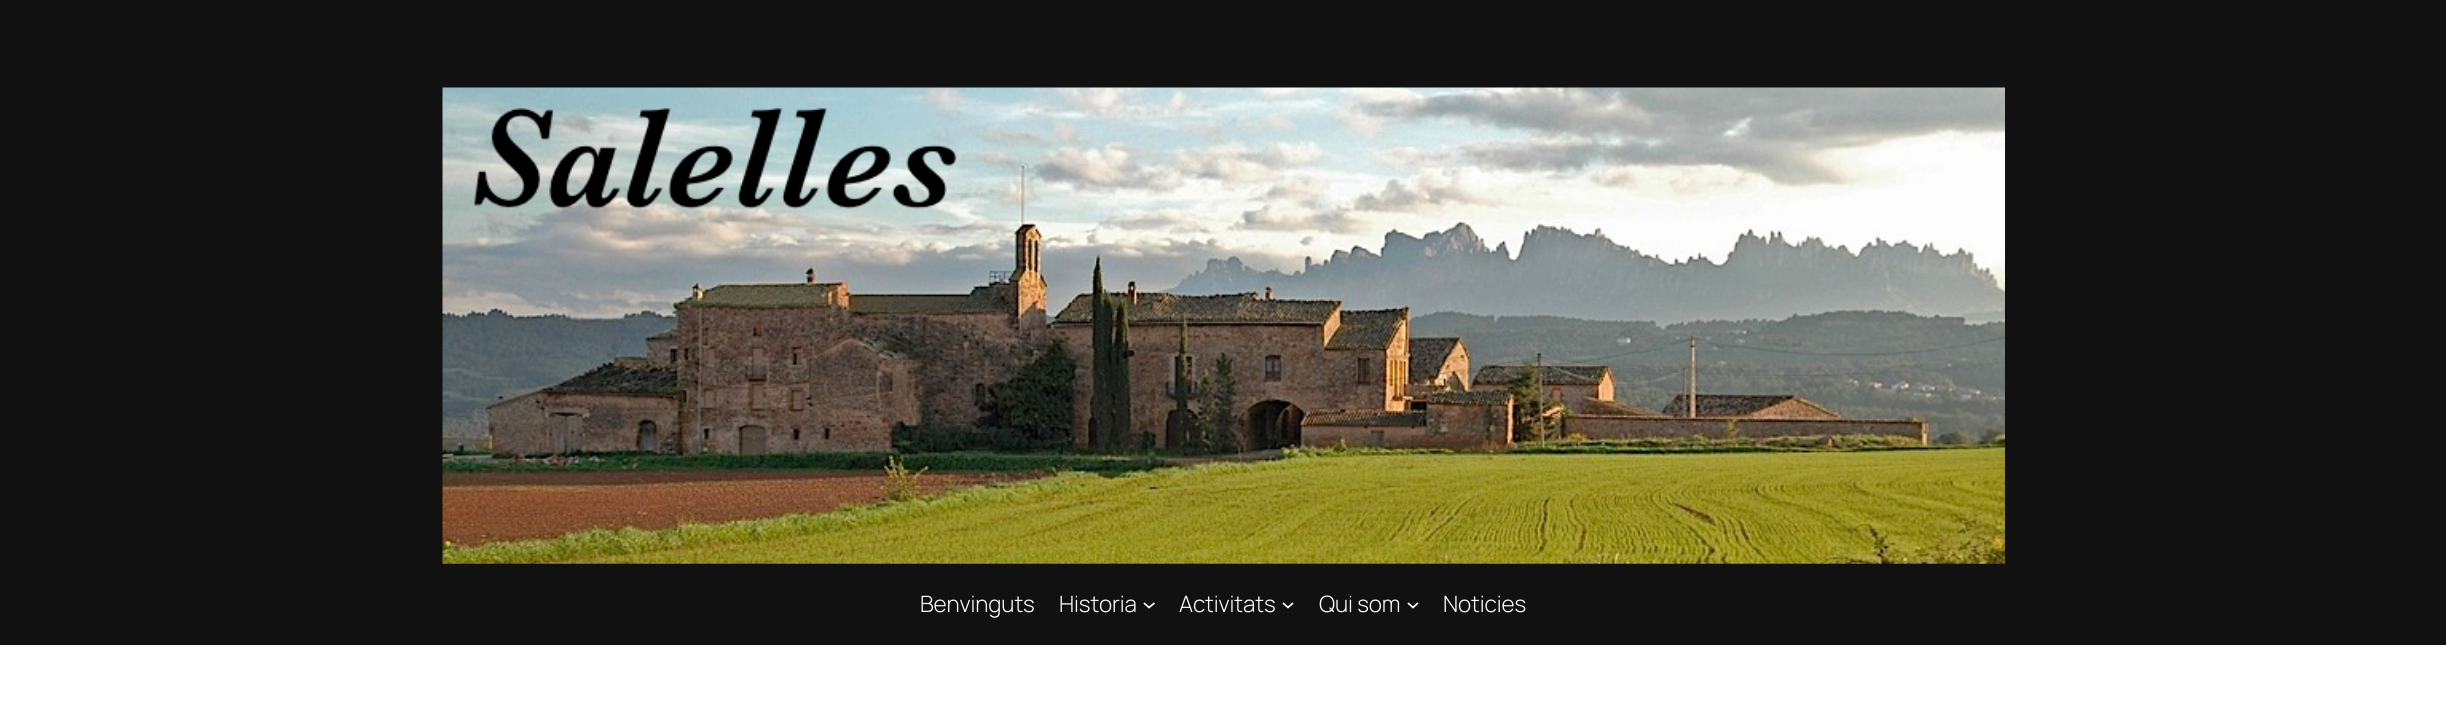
#include <cairo/cairo.h>
#include <math.h>
#include <stddef.h>

static cairo_t *cr;

static void use_color(int r, int g, int b) {
  cairo_set_source_rgb(cr, r / 255.0, g / 255.0, b / 255.0);
}

static void spaced_text(double x, double y, const char *s, double letter, double word) {
  cairo_move_to(cr, x, y);
  while (*s) {
    char ch[5] = {0};
    int n = 0;
    do ch[n++] = *s++; while ((*s & 0xC0) == 0x80);
    cairo_show_text(cr, ch);
    cairo_rel_move_to(cr, letter + word * (*ch == ' '), 0);
  }
}

static void box(double x, double y, double w, double h, int r, int g, int b) {
  use_color(r, g, b);
  cairo_rectangle(cr, x, y, w, h);
  cairo_fill(cr);
}

static void picture(const char *path, double x, double y, double w, double h) {
  cairo_surface_t *image = cairo_image_surface_create_from_png(path);
  cairo_save(cr);
  cairo_set_source_surface(cr, image, x, y);
  cairo_rectangle(cr, x, y, w, h);
  cairo_fill(cr);
  cairo_restore(cr);
  cairo_surface_destroy(image);
}

static void draw(void) {
  use_color(255, 255, 255);
  cairo_paint(cr);
  box(0, 0, 2446, 645, 17, 17, 17);
  picture("img_01.png", 442, 87, 1563, 477);
  cairo_new_path(cr);
  cairo_move_to(cr, 1144, 603);
  cairo_line_to(cr, 1149, 607.5);
  cairo_line_to(cr, 1154.5, 603);
  use_color(255, 255, 255);
  cairo_set_line_width(cr, 1.7);
  cairo_stroke(cr);
  cairo_new_path(cr);
  cairo_move_to(cr, 1283, 603);
  cairo_line_to(cr, 1288, 607.5);
  cairo_line_to(cr, 1293, 603);
  cairo_stroke(cr);
  cairo_new_path(cr);
  cairo_move_to(cr, 1408, 603);
  cairo_line_to(cr, 1413, 607.5);
  cairo_line_to(cr, 1418, 603);
  cairo_stroke(cr);
  cairo_select_font_face(cr, "Manrope Light", CAIRO_FONT_SLANT_NORMAL, CAIRO_FONT_WEIGHT_NORMAL);
  cairo_set_font_size(cr, 22.5);
  spaced_text(920, 612, "Benvinguts", -0.1, 0);
  spaced_text(1059, 612, "Historia", -0.1, 0);
  spaced_text(1179, 612, "Activitats", -0.1, 0);
  spaced_text(1319, 612, "Qui som", -0.1, 0);
  spaced_text(1443, 612, "Noticies", -0.1, 0);
}

int main(void) {
  cairo_surface_t *surface = cairo_image_surface_create(CAIRO_FORMAT_RGB24, 2446, 726);
  cr = cairo_create(surface);
  cairo_font_options_t *options = cairo_font_options_create();
  cairo_font_options_set_hint_metrics(options, CAIRO_HINT_METRICS_OFF);
  cairo_font_options_set_hint_style(options, CAIRO_HINT_STYLE_NONE);
  cairo_set_font_options(cr, options);
  cairo_set_miter_limit(cr, 4);
  draw();
  cairo_surface_write_to_png(surface, "out.png");
  cairo_font_options_destroy(options);
  cairo_destroy(cr);
  cairo_surface_destroy(surface);
  return 0;
}
